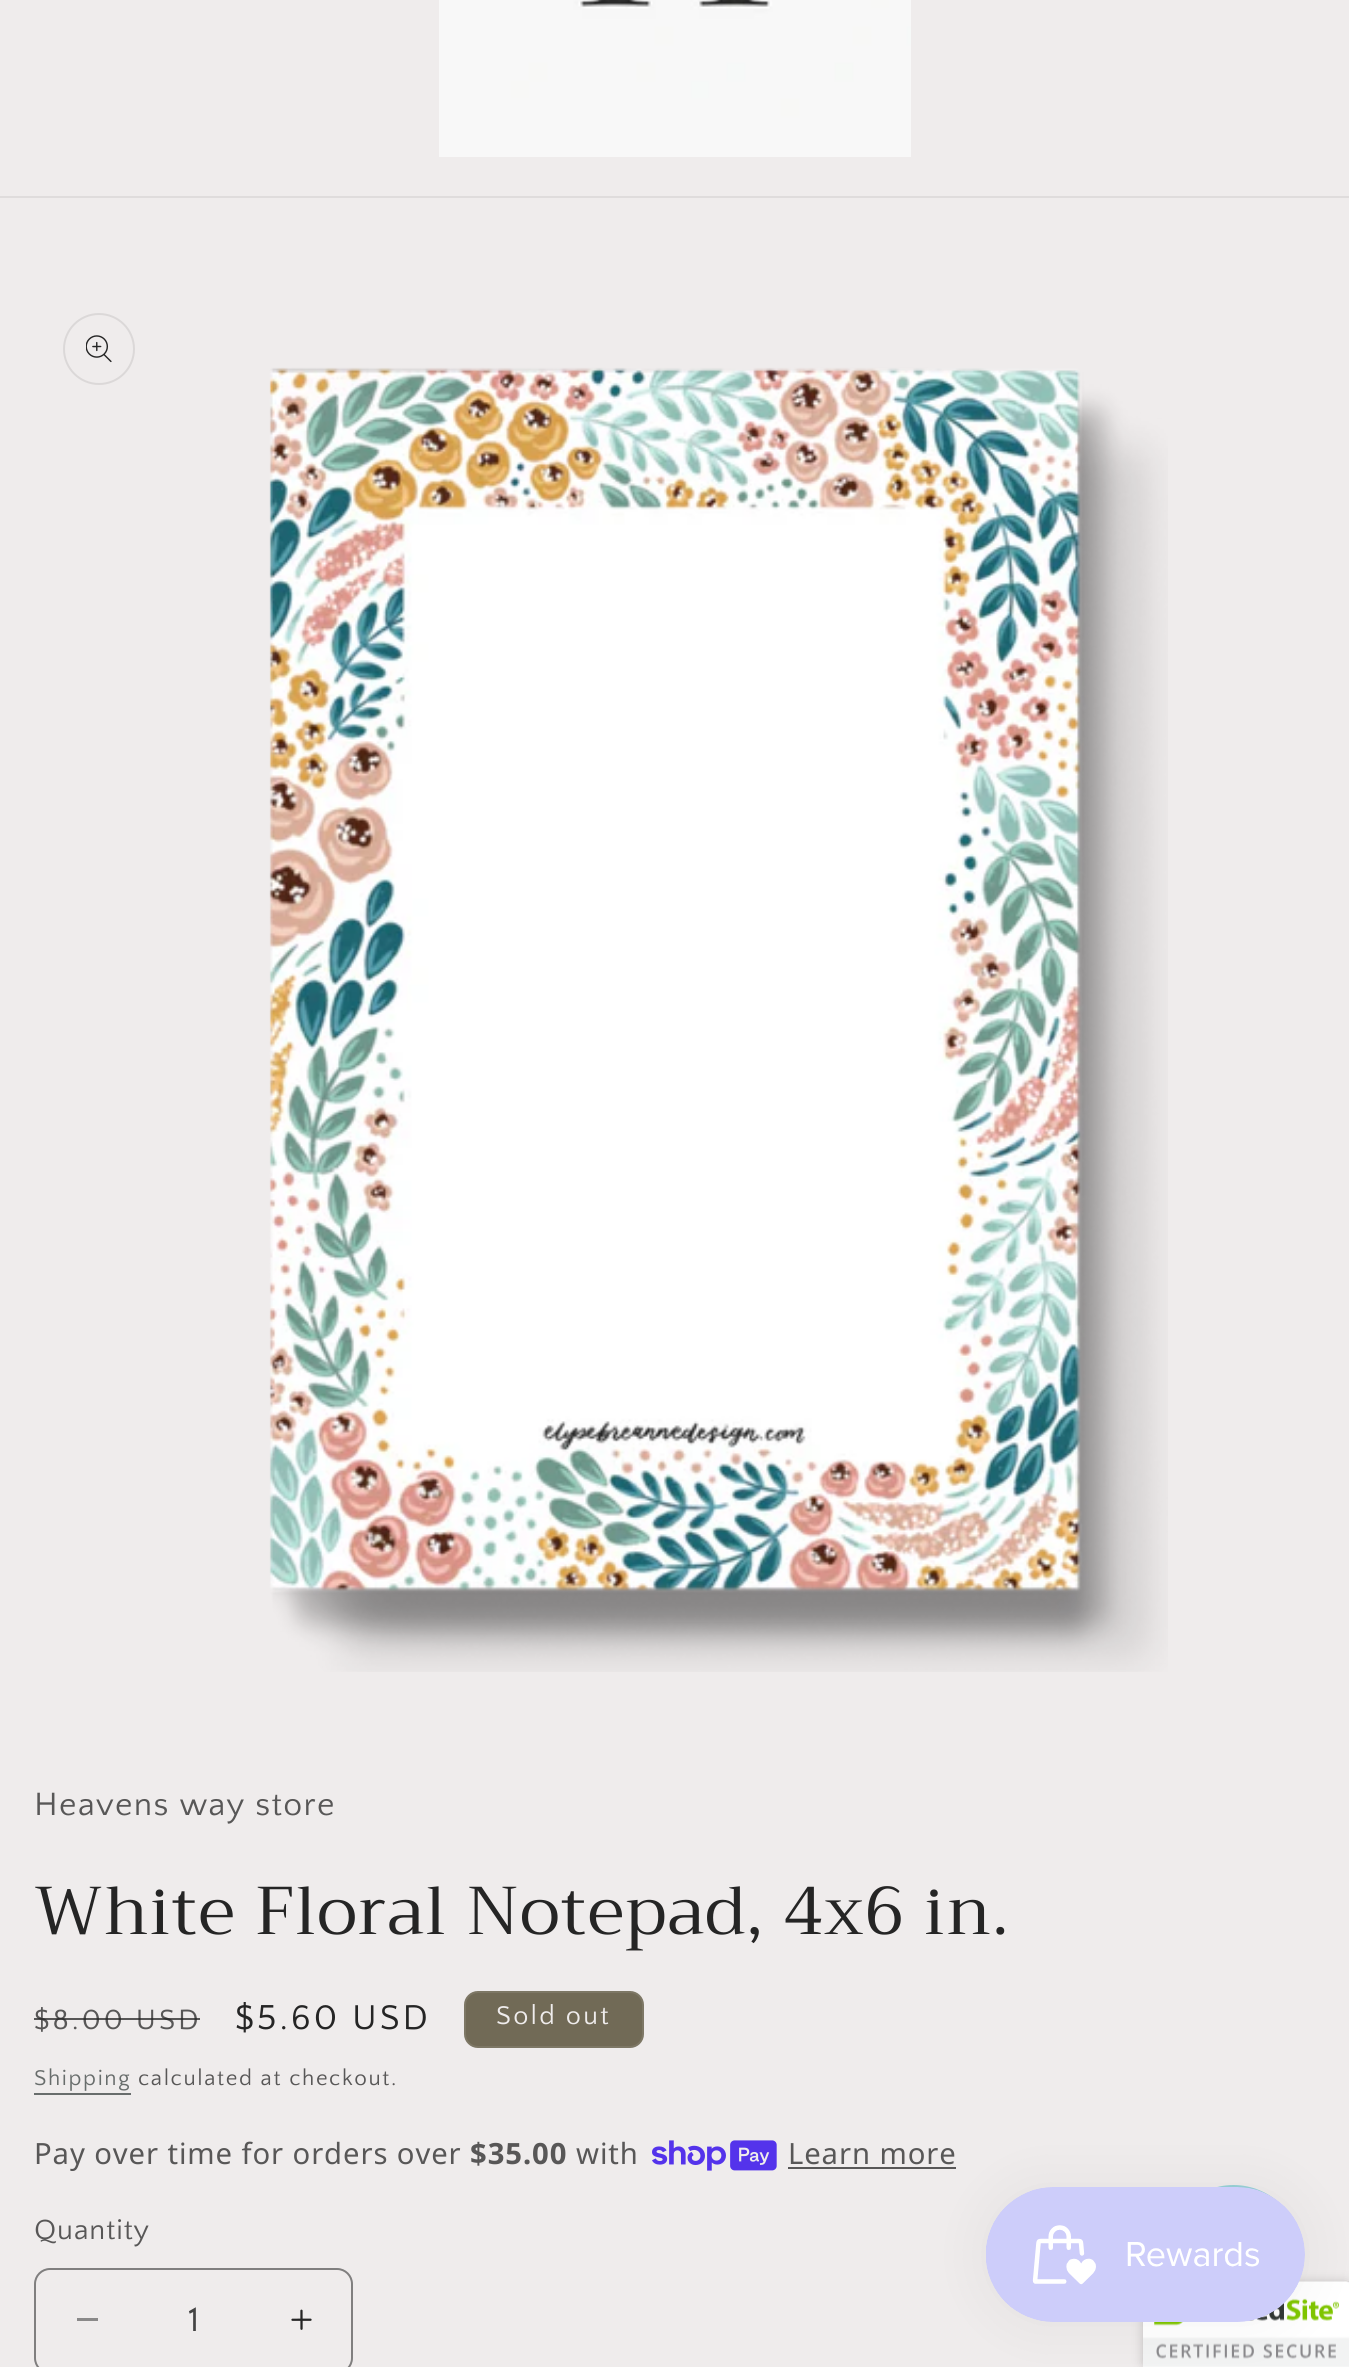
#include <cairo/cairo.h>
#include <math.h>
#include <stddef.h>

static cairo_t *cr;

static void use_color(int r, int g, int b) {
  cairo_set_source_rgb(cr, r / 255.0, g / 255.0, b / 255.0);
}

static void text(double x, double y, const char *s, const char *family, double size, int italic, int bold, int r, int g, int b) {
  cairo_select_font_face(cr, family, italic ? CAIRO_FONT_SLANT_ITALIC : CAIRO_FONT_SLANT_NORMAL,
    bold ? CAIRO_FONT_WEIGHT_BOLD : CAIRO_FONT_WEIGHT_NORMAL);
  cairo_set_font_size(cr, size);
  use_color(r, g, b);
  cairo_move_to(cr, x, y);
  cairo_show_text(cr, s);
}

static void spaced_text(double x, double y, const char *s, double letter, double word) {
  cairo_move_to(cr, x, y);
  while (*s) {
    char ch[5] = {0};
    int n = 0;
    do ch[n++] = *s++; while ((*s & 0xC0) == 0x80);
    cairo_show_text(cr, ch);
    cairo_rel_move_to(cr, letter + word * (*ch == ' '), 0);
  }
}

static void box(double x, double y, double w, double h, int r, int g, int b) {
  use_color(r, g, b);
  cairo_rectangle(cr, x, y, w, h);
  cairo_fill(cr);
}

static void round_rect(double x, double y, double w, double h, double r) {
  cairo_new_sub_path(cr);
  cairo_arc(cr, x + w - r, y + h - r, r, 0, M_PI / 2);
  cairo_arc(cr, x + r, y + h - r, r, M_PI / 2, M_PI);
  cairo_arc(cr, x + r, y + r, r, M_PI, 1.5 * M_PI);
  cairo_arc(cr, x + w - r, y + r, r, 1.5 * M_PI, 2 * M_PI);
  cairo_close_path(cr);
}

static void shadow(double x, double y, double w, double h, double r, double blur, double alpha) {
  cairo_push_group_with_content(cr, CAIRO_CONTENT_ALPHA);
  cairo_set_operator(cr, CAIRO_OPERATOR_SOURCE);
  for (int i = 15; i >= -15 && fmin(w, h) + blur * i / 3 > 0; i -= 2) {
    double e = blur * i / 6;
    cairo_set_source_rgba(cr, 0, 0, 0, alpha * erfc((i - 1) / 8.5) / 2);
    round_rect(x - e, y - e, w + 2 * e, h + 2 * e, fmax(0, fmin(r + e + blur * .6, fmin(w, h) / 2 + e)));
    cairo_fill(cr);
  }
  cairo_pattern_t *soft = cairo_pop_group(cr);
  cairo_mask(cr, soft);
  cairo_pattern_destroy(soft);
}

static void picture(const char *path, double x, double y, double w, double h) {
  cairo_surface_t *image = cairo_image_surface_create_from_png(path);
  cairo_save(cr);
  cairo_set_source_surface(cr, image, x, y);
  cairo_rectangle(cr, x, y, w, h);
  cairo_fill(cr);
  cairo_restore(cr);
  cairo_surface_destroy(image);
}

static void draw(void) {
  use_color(239, 236, 236);
  cairo_paint(cr);
  box(0, 196, 1349, 2, 223, 220, 220);
  picture("img_01.png", 439, 0, 472, 157);
  cairo_arc(cr, 99, 349, 35, 0, 2 * M_PI);
  use_color(219, 216, 216);
  cairo_stroke(cr);
  picture("img_02.png", 86, 335, 26, 28);
  picture("img_03.png", 269, 367, 899, 1305);
  use_color(113, 106, 86);
  round_rect(464, 1991, 180, 57, 14);
  cairo_fill(cr);
  round_rect(465, 1992, 178, 55, 13);
  cairo_set_source_rgba(cr, 0.937, 0.925, 0.925, 0.1);
  cairo_stroke(cr);
  box(34, 2093, 97, 2, 104, 109, 108);
  picture("img_04.png", 652, 2140, 125, 31);
  box(788, 2167, 168, 2, 88, 87, 87);
  box(77, 2318, 21, 3, 138, 137, 137);
  picture("img_05.png", 291, 2309, 21, 21);
  round_rect(35, 2269, 317, 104, 15);
  use_color(128, 127, 127);
  cairo_stroke(cr);
  use_color(152, 209, 214);
  cairo_arc(cr, 1233.5, 2252.5, 67.5, 0, 2 * M_PI);
  cairo_fill(cr);
  use_color(0, 0, 0);
  shadow(1143, 2282, 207, 85, 5, 5.5, 0.2);
  box(1143, 2282, 206, 85, 255, 255, 255);
  picture("img_07.png", 1143, 2281, 206, 86);
  use_color(0, 0, 0);
  shadow(986, 2187, 319, 135, 67.5, 28, 0.05);
  picture("img_06.png", 986, 2187, 319, 135);
  cairo_select_font_face(cr, "Quattrocento Sans", CAIRO_FONT_SLANT_NORMAL, CAIRO_FONT_WEIGHT_NORMAL);
  cairo_set_font_size(cr, 33.75);
  use_color(88, 87, 87);
  spaced_text(34, 1815, "Heavens way store", 1.35, 0);
  cairo_select_font_face(cr, "Trirong", CAIRO_FONT_SLANT_NORMAL, CAIRO_FONT_WEIGHT_NORMAL);
  cairo_set_font_size(cr, 67.5);
  use_color(37, 37, 37);
  spaced_text(34, 1934, "White Floral Notepad, 4x6 in.", 1.35, 0);
  cairo_select_font_face(cr, "Quattrocento Sans", CAIRO_FONT_SLANT_NORMAL, CAIRO_FONT_WEIGHT_NORMAL);
  cairo_set_font_size(cr, 29.25);
  use_color(88, 87, 87);
  spaced_text(34, 2029, "$8.00 USD", 3, 0);
  cairo_set_source_rgba(cr, 0.145, 0.145, 0.145, 0.75);
  cairo_rectangle(cr, 34, 2018, 166, 2);
  cairo_fill(cr);
  cairo_set_font_size(cr, 36);
  use_color(37, 37, 37);
  spaced_text(235, 2029, "$5.60 USD", 3, 0);
  cairo_set_font_size(cr, 27);
  use_color(239, 236, 236);
  spaced_text(496, 2024, "Sold out", 2.25, 0);
  cairo_set_font_size(cr, 22.5);
  use_color(104, 109, 108);
  spaced_text(34, 2085, "Shipping", 1.6, 0);
  use_color(88, 87, 87);
  spaced_text(138, 2085, "calculated at checkout.", 1.6, 0);
  cairo_select_font_face(cr, "Noto Sans", CAIRO_FONT_SLANT_NORMAL, CAIRO_FONT_WEIGHT_NORMAL);
  cairo_set_font_size(cr, 29.25);
  spaced_text(34, 2164, "Pay over time for orders over", 0.9, 0);
  cairo_select_font_face(cr, "Noto Sans", CAIRO_FONT_SLANT_NORMAL, CAIRO_FONT_WEIGHT_BOLD);
  spaced_text(470, 2164, "$35.00", 0.9, 0);
  cairo_select_font_face(cr, "Noto Sans", CAIRO_FONT_SLANT_NORMAL, CAIRO_FONT_WEIGHT_NORMAL);
  spaced_text(576, 2164, "with", 0.9, 0);
  spaced_text(788, 2164, "Learn more", 0.9, 0);
  cairo_select_font_face(cr, "Quattrocento Sans", CAIRO_FONT_SLANT_NORMAL, CAIRO_FONT_WEIGHT_NORMAL);
  spaced_text(34, 2239, "Quantity", 0.9, 0);
  text(188, 2331, "1", "Quattrocento Sans", 36, 0, 0, 67, 67, 67);
}

int main(void) {
  cairo_surface_t *surface = cairo_image_surface_create(CAIRO_FORMAT_RGB24, 1349, 2367);
  cr = cairo_create(surface);
  cairo_font_options_t *options = cairo_font_options_create();
  cairo_font_options_set_hint_metrics(options, CAIRO_HINT_METRICS_OFF);
  cairo_font_options_set_hint_style(options, CAIRO_HINT_STYLE_NONE);
  cairo_set_font_options(cr, options);
  cairo_set_miter_limit(cr, 4);
  draw();
  cairo_surface_write_to_png(surface, "out.png");
  cairo_font_options_destroy(options);
  cairo_destroy(cr);
  cairo_surface_destroy(surface);
  return 0;
}
